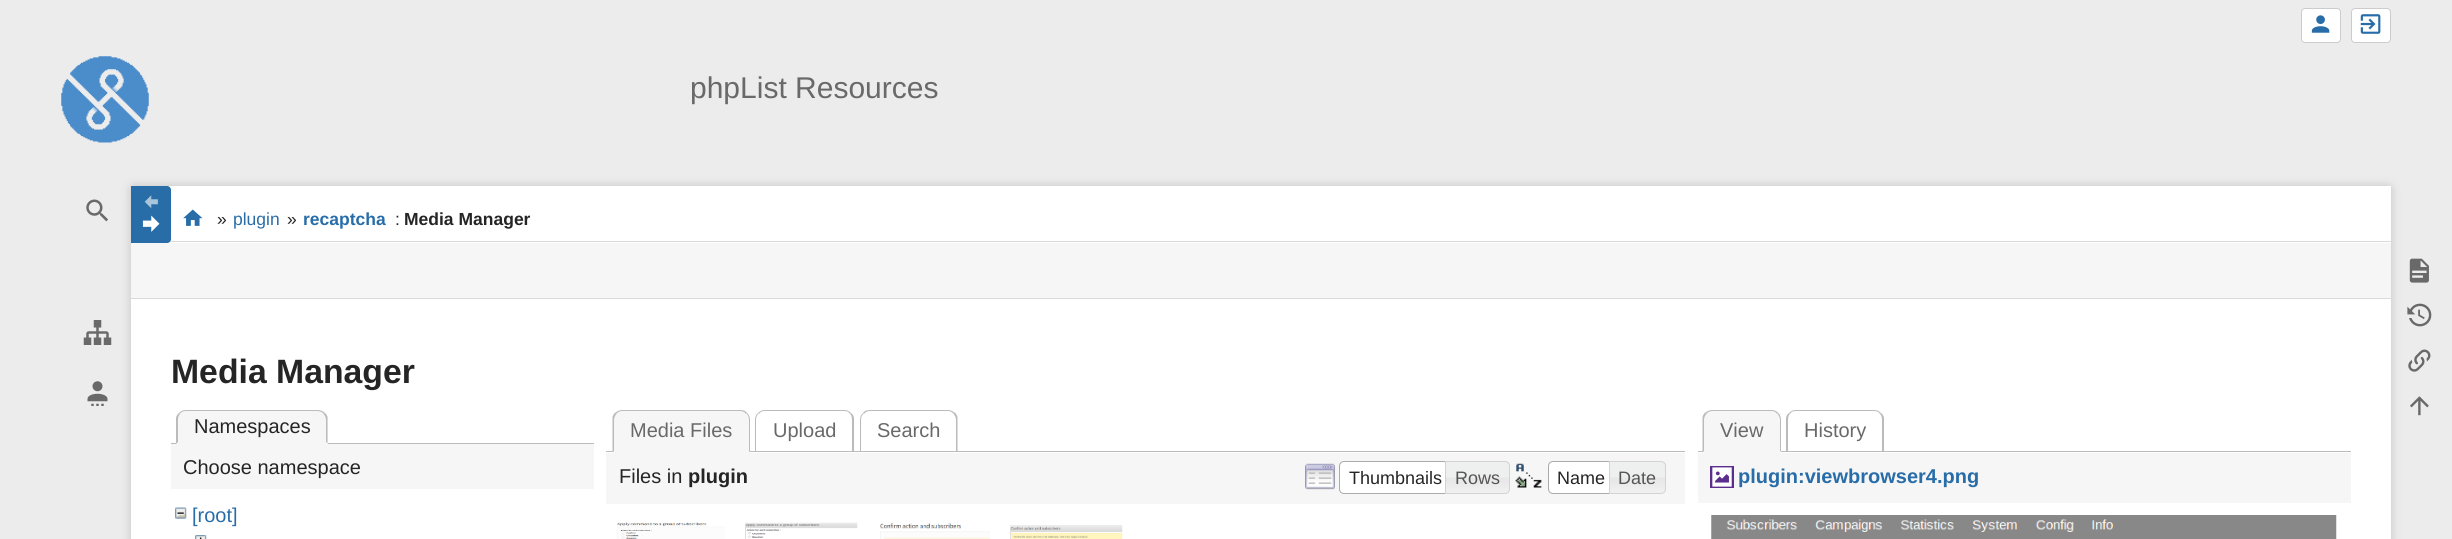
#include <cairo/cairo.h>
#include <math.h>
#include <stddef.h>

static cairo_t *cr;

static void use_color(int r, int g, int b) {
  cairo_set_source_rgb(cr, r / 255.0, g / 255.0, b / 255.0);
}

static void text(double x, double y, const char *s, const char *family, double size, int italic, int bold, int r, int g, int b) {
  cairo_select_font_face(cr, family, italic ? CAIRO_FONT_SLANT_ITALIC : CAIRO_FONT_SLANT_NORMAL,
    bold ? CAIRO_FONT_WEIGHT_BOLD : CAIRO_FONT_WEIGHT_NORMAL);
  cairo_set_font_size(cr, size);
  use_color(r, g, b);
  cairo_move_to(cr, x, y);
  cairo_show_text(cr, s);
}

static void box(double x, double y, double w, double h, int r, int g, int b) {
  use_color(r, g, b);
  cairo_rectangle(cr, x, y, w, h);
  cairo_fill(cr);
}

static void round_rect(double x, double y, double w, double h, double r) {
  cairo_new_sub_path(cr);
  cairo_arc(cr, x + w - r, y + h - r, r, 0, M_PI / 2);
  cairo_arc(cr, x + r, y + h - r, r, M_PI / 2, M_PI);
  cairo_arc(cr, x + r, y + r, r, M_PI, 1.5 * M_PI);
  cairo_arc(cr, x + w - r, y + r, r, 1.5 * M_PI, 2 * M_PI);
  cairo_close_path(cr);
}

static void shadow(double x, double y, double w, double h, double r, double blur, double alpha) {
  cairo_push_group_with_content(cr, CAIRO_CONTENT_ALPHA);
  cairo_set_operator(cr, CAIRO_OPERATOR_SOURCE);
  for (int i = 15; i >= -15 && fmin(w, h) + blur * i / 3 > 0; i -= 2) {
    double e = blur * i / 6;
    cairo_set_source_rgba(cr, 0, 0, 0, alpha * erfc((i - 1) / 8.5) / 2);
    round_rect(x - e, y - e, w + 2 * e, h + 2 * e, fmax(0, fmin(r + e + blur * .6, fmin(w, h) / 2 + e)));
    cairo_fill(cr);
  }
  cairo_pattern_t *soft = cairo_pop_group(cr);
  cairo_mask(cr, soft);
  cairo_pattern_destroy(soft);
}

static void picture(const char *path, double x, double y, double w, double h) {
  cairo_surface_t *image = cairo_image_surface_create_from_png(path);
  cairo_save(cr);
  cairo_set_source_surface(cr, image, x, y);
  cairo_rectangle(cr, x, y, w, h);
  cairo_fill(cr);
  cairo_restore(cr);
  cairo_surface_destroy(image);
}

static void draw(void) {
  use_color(236, 236, 236);
  cairo_paint(cr);
  use_color(255, 255, 255);
  round_rect(2301.5, 8.5, 39, 34, 3.5);
  cairo_fill_preserve(cr);
  use_color(204, 204, 204);
  cairo_set_line_width(cr, 1);
  cairo_stroke(cr);
  picture("img_01.png", 2311, 15, 19, 18);
  use_color(255, 255, 255);
  round_rect(2351.5, 8.5, 39, 34, 3.5);
  cairo_fill_preserve(cr);
  use_color(204, 204, 204);
  cairo_stroke(cr);
  picture("img_02.png", 2360, 14, 21, 20);
  picture("img_03.png", 61, 56, 88, 87);
  picture("img_04.png", 86, 199, 22, 23);
  picture("img_05.png", 83, 320, 29, 25);
  picture("img_06.png", 87, 381, 21, 25);
  use_color(153, 153, 153);
  shadow(131, 186, 2260, 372, 4, 5, 0.5);
  box(131, 299, 2260, 240, 255, 255, 255);
  box(167, 186, 2224, 57, 255, 255, 255);
  box(169, 241, 2222, 1, 218, 218, 218);
  use_color(40, 109, 168);
  cairo_new_path(cr);
  cairo_move_to(cr, 131.5, 186.5);
  cairo_line_to(cr, 167, 186.5);
  cairo_curve_to(cr, 169, 186.5, 170.5, 188, 170.5, 190);
  cairo_line_to(cr, 170.5, 239);
  cairo_curve_to(cr, 170.5, 241, 169, 242.5, 167, 242.5);
  cairo_line_to(cr, 131.5, 242.5);
  cairo_close_path(cr);
  cairo_fill_preserve(cr);
  cairo_stroke(cr);
  picture("img_07.png", 144, 195, 14, 14);
  picture("img_08.png", 142, 215, 18, 17);
  picture("img_09.png", 183, 209, 20, 17);
  picture("img_10.png", 2409, 258, 20, 25);
  picture("img_11.png", 2407, 303, 25, 24);
  picture("img_12.png", 2408, 349, 23, 23);
  picture("img_13.png", 2410, 396, 19, 20);
  box(131, 243, 2260, 55, 246, 246, 246);
  box(131, 298, 2260, 1, 218, 218, 218);
  box(171, 443, 423, 1, 187, 187, 187);
  use_color(246, 246, 246);
  cairo_new_path(cr);
  cairo_move_to(cr, 186, 410);
  cairo_line_to(cr, 318, 410);
  cairo_curve_to(cr, 323.5, 410, 328, 414.5, 328, 420);
  cairo_line_to(cr, 328, 444);
  cairo_line_to(cr, 176, 444);
  cairo_line_to(cr, 176, 420);
  cairo_curve_to(cr, 176, 414.5, 180.5, 410, 186, 410);
  cairo_close_path(cr);
  cairo_fill(cr);
  use_color(187, 187, 187);
  cairo_new_path(cr);
  cairo_move_to(cr, 186, 410);
  cairo_curve_to(cr, 183, 410, 181, 411, 179, 413);
  cairo_line_to(cr, 180, 414);
  cairo_curve_to(cr, 181, 412, 183, 411, 186, 411);
  cairo_line_to(cr, 317, 411);
  cairo_curve_to(cr, 320, 411, 322, 412, 324, 414);
  cairo_line_to(cr, 325, 413);
  cairo_curve_to(cr, 323, 411, 320, 410, 317, 410);
  cairo_close_path(cr);
  cairo_fill(cr);
  cairo_new_path(cr);
  cairo_move_to(cr, 325, 413);
  cairo_curve_to(cr, 326, 414, 327, 415, 327.5, 417);
  cairo_line_to(cr, 327.5, 444);
  cairo_line_to(cr, 326, 442);
  cairo_line_to(cr, 326, 420);
  cairo_curve_to(cr, 326, 417.5, 325, 415.5, 323.5, 414);
  cairo_close_path(cr);
  cairo_fill(cr);
  use_color(246, 246, 246);
  cairo_new_path(cr);
  cairo_move_to(cr, 328, 444);
  cairo_line_to(cr, 326, 442);
  cairo_line_to(cr, 178, 442);
  cairo_line_to(cr, 176, 444);
  cairo_close_path(cr);
  cairo_fill(cr);
  use_color(187, 187, 187);
  cairo_new_path(cr);
  cairo_move_to(cr, 176, 444);
  cairo_line_to(cr, 176, 417.5);
  cairo_curve_to(cr, 176.5, 416, 177.5, 414, 179, 413);
  cairo_line_to(cr, 180, 414);
  cairo_curve_to(cr, 178.5, 415.5, 178, 417.5, 178, 420);
  cairo_line_to(cr, 178, 442);
  cairo_close_path(cr);
  cairo_fill(cr);
  box(171, 444, 423, 45, 246, 246, 246);
  picture("img_14.png", 175, 507, 12, 12);
  picture("img_15.png", 195, 535, 12, 4);
  use_color(187, 187, 187);
  cairo_new_path(cr);
  cairo_move_to(cr, 765, 410);
  cairo_curve_to(cr, 762, 410, 760, 411, 758, 413);
  cairo_line_to(cr, 759, 414);
  cairo_curve_to(cr, 760, 412, 762, 411, 765, 411);
  cairo_line_to(cr, 844, 411);
  cairo_curve_to(cr, 847, 411, 849, 412, 850, 414);
  cairo_line_to(cr, 851, 413);
  cairo_curve_to(cr, 849, 411, 847, 410, 844, 410);
  cairo_close_path(cr);
  cairo_fill(cr);
  cairo_new_path(cr);
  cairo_move_to(cr, 854, 452);
  cairo_line_to(cr, 853, 452);
  cairo_line_to(cr, 852, 451);
  cairo_line_to(cr, 852, 420);
  cairo_curve_to(cr, 852, 417.5, 851.5, 415.5, 850, 414);
  cairo_line_to(cr, 851, 413);
  cairo_curve_to(cr, 852.5, 414, 853.5, 416, 854, 417.5);
  cairo_close_path(cr);
  cairo_fill(cr);
  cairo_new_path(cr);
  cairo_move_to(cr, 755, 420);
  cairo_line_to(cr, 755, 452);
  cairo_line_to(cr, 755.5, 452);
  cairo_line_to(cr, 756.5, 451);
  cairo_line_to(cr, 756, 451);
  cairo_line_to(cr, 756, 420);
  cairo_curve_to(cr, 756, 417.5, 757, 415, 758.5, 413.5);
  cairo_line_to(cr, 758, 413);
  cairo_curve_to(cr, 756, 414.5, 755, 417, 755, 420);
  cairo_close_path(cr);
  cairo_fill(cr);
  cairo_new_path(cr);
  cairo_move_to(cr, 870, 410);
  cairo_curve_to(cr, 867, 410, 864, 411, 863, 413);
  cairo_line_to(cr, 864, 414);
  cairo_curve_to(cr, 865, 412, 868, 411, 870, 411);
  cairo_line_to(cr, 948, 411);
  cairo_curve_to(cr, 950, 411, 952, 412, 954, 414);
  cairo_line_to(cr, 955, 413);
  cairo_curve_to(cr, 953, 411, 950, 410, 948, 410);
  cairo_close_path(cr);
  cairo_fill(cr);
  cairo_new_path(cr);
  cairo_move_to(cr, 957.5, 452);
  cairo_line_to(cr, 957, 452);
  cairo_line_to(cr, 956, 451);
  cairo_line_to(cr, 956, 420);
  cairo_curve_to(cr, 956, 417.5, 955, 415.5, 953.5, 414);
  cairo_line_to(cr, 955, 412.5);
  cairo_curve_to(cr, 956, 414, 957, 415, 957.5, 417);
  cairo_close_path(cr);
  cairo_fill(cr);
  cairo_new_path(cr);
  cairo_move_to(cr, 860, 420);
  cairo_line_to(cr, 860, 452);
  cairo_line_to(cr, 860.5, 452);
  cairo_line_to(cr, 861.5, 451);
  cairo_line_to(cr, 861, 451);
  cairo_line_to(cr, 861, 420);
  cairo_curve_to(cr, 861, 417.5, 862, 415, 863.5, 413.5);
  cairo_line_to(cr, 863, 413);
  cairo_curve_to(cr, 861, 414.5, 860, 417, 860, 420);
  cairo_close_path(cr);
  cairo_fill(cr);
  box(606, 451, 1079, 1, 187, 187, 187);
  use_color(246, 246, 246);
  cairo_new_path(cr);
  cairo_move_to(cr, 623, 410);
  cairo_line_to(cr, 740, 410);
  cairo_curve_to(cr, 745.5, 410, 750, 414.5, 750, 420);
  cairo_line_to(cr, 750, 453);
  cairo_line_to(cr, 613, 453);
  cairo_line_to(cr, 613, 420);
  cairo_curve_to(cr, 613, 414.5, 617.5, 410, 623, 410);
  cairo_close_path(cr);
  cairo_fill(cr);
  use_color(187, 187, 187);
  cairo_new_path(cr);
  cairo_move_to(cr, 622, 410);
  cairo_curve_to(cr, 620, 410, 617, 411, 615, 413);
  cairo_line_to(cr, 616, 414);
  cairo_curve_to(cr, 618, 412, 620, 411, 622, 411);
  cairo_line_to(cr, 740, 411);
  cairo_curve_to(cr, 742, 411, 745, 412, 746, 414);
  cairo_line_to(cr, 747, 413);
  cairo_curve_to(cr, 746, 411, 743, 410, 740, 410);
  cairo_close_path(cr);
  cairo_fill(cr);
  cairo_new_path(cr);
  cairo_move_to(cr, 750, 452);
  cairo_line_to(cr, 750, 420);
  cairo_curve_to(cr, 750, 417, 749, 414.5, 747, 413);
  cairo_line_to(cr, 746.5, 413.5);
  cairo_curve_to(cr, 748, 415, 749, 417.5, 749, 420);
  cairo_line_to(cr, 749, 451);
  cairo_line_to(cr, 748.5, 451);
  cairo_line_to(cr, 749.5, 452);
  cairo_close_path(cr);
  cairo_fill(cr);
  use_color(246, 246, 246);
  cairo_new_path(cr);
  cairo_move_to(cr, 750, 452);
  cairo_line_to(cr, 613, 452);
  cairo_line_to(cr, 614, 451);
  cairo_line_to(cr, 748, 451);
  cairo_close_path(cr);
  cairo_fill(cr);
  use_color(187, 187, 187);
  cairo_new_path(cr);
  cairo_move_to(cr, 612.5, 417);
  cairo_curve_to(cr, 613, 415, 614, 414, 615, 412.5);
  cairo_line_to(cr, 616.5, 414);
  cairo_curve_to(cr, 615, 415.5, 614, 417.5, 614, 420);
  cairo_line_to(cr, 614, 451);
  cairo_line_to(cr, 613, 452);
  cairo_line_to(cr, 612.5, 452);
  cairo_close_path(cr);
  cairo_fill(cr);
  box(606, 453, 1079, 51, 246, 246, 246);
  picture("img_16.png", 1305, 463, 30, 27);
  use_color(255, 255, 255);
  cairo_new_path(cr);
  cairo_move_to(cr, 1344, 461.5);
  cairo_line_to(cr, 1452.5, 461.5);
  cairo_line_to(cr, 1452.5, 493.5);
  cairo_line_to(cr, 1344, 493.5);
  cairo_curve_to(cr, 1341.5, 493.5, 1339.5, 491.5, 1339.5, 489);
  cairo_line_to(cr, 1339.5, 466);
  cairo_curve_to(cr, 1339.5, 463.5, 1341.5, 461.5, 1344, 461.5);
  cairo_close_path(cr);
  cairo_fill_preserve(cr);
  use_color(170, 170, 170);
  cairo_stroke(cr);
  picture("img_17.png", 1446, 461, 64, 33);
  cairo_new_path(cr);
  cairo_move_to(cr, 1445.5, 461.5);
  cairo_line_to(cr, 1505, 461.5);
  cairo_curve_to(cr, 1507.5, 461.5, 1509.5, 463.5, 1509.5, 466);
  cairo_line_to(cr, 1509.5, 489);
  cairo_curve_to(cr, 1509.5, 491.5, 1507.5, 493.5, 1505, 493.5);
  cairo_line_to(cr, 1445.5, 493.5);
  cairo_close_path(cr);
  use_color(211, 211, 211);
  cairo_stroke(cr);
  picture("img_18.png", 1515, 463, 27, 25);
  use_color(255, 255, 255);
  cairo_new_path(cr);
  cairo_move_to(cr, 1553, 461.5);
  cairo_line_to(cr, 1614.5, 461.5);
  cairo_line_to(cr, 1614.5, 493.5);
  cairo_line_to(cr, 1553, 493.5);
  cairo_curve_to(cr, 1550.5, 493.5, 1548.5, 491.5, 1548.5, 489);
  cairo_line_to(cr, 1548.5, 466);
  cairo_curve_to(cr, 1548.5, 463.5, 1550.5, 461.5, 1553, 461.5);
  cairo_close_path(cr);
  cairo_fill_preserve(cr);
  use_color(170, 170, 170);
  cairo_stroke(cr);
  picture("img_19.png", 1610, 461, 56, 33);
  cairo_new_path(cr);
  cairo_move_to(cr, 1609.5, 461.5);
  cairo_line_to(cr, 1661, 461.5);
  cairo_curve_to(cr, 1663.5, 461.5, 1665.5, 463.5, 1665.5, 466);
  cairo_line_to(cr, 1665.5, 489);
  cairo_curve_to(cr, 1665.5, 491.5, 1663.5, 493.5, 1661, 493.5);
  cairo_line_to(cr, 1609.5, 493.5);
  cairo_close_path(cr);
  use_color(211, 211, 211);
  cairo_stroke(cr);
  picture("img_20.png", 616, 522, 109, 17);
  picture("img_21.png", 745, 522, 113, 17);
  picture("img_22.png", 880, 523, 110, 16);
  picture("img_23.png", 1010, 525, 113, 14);
  use_color(187, 187, 187);
  cairo_new_path(cr);
  cairo_move_to(cr, 1796, 410);
  cairo_curve_to(cr, 1793, 410, 1791, 411, 1789, 413);
  cairo_line_to(cr, 1790, 414);
  cairo_curve_to(cr, 1791, 412, 1793, 411, 1796, 411);
  cairo_line_to(cr, 1874, 411);
  cairo_curve_to(cr, 1877, 411, 1879, 412, 1880, 414);
  cairo_line_to(cr, 1881, 413);
  cairo_curve_to(cr, 1879, 411, 1877, 410, 1874, 410);
  cairo_close_path(cr);
  cairo_fill(cr);
  cairo_new_path(cr);
  cairo_move_to(cr, 1884, 452);
  cairo_line_to(cr, 1883, 452);
  cairo_line_to(cr, 1882, 451);
  cairo_line_to(cr, 1882, 420);
  cairo_curve_to(cr, 1882, 417.5, 1881.5, 415.5, 1880, 414);
  cairo_line_to(cr, 1881, 413);
  cairo_curve_to(cr, 1882.5, 414, 1883.5, 416, 1884, 417.5);
  cairo_close_path(cr);
  cairo_fill(cr);
  cairo_new_path(cr);
  cairo_move_to(cr, 1786, 417.5);
  cairo_curve_to(cr, 1786.5, 416, 1787.5, 414, 1789, 413);
  cairo_line_to(cr, 1790, 414);
  cairo_curve_to(cr, 1788.5, 415.5, 1788, 417.5, 1788, 420);
  cairo_line_to(cr, 1788, 451);
  cairo_line_to(cr, 1787, 452);
  cairo_line_to(cr, 1786, 452);
  cairo_close_path(cr);
  cairo_fill(cr);
  box(1698, 451, 653, 1, 187, 187, 187);
  use_color(246, 246, 246);
  cairo_new_path(cr);
  cairo_move_to(cr, 1713, 410);
  cairo_line_to(cr, 1771, 410);
  cairo_curve_to(cr, 1776.5, 410, 1781, 414.5, 1781, 420);
  cairo_line_to(cr, 1781, 453);
  cairo_line_to(cr, 1703, 453);
  cairo_line_to(cr, 1703, 420);
  cairo_curve_to(cr, 1703, 414.5, 1707.5, 410, 1713, 410);
  cairo_close_path(cr);
  cairo_fill(cr);
  use_color(187, 187, 187);
  cairo_new_path(cr);
  cairo_move_to(cr, 1712, 410);
  cairo_curve_to(cr, 1710, 410, 1707, 411, 1705, 413);
  cairo_line_to(cr, 1706, 414);
  cairo_curve_to(cr, 1708, 412, 1710, 411, 1712, 411);
  cairo_line_to(cr, 1771, 411);
  cairo_curve_to(cr, 1774, 411, 1776, 412, 1777, 414);
  cairo_line_to(cr, 1778, 413);
  cairo_curve_to(cr, 1777, 411, 1774, 410, 1771, 410);
  cairo_close_path(cr);
  cairo_fill(cr);
  cairo_new_path(cr);
  cairo_move_to(cr, 1778.5, 413);
  cairo_curve_to(cr, 1780, 414.5, 1781, 417, 1781, 420);
  cairo_line_to(cr, 1781, 452);
  cairo_line_to(cr, 1780, 451);
  cairo_line_to(cr, 1780, 420);
  cairo_curve_to(cr, 1780, 417.5, 1779, 415.5, 1777.5, 414);
  cairo_close_path(cr);
  cairo_fill(cr);
  use_color(246, 246, 246);
  cairo_new_path(cr);
  cairo_move_to(cr, 1781, 452);
  cairo_line_to(cr, 1703, 452);
  cairo_line_to(cr, 1704, 451);
  cairo_line_to(cr, 1780, 451);
  cairo_close_path(cr);
  cairo_fill(cr);
  use_color(187, 187, 187);
  cairo_new_path(cr);
  cairo_move_to(cr, 1702.5, 417);
  cairo_curve_to(cr, 1703, 415, 1704, 414, 1705, 412.5);
  cairo_line_to(cr, 1706.5, 414);
  cairo_curve_to(cr, 1705, 415.5, 1704, 417.5, 1704, 420);
  cairo_line_to(cr, 1704, 451);
  cairo_line_to(cr, 1703, 452);
  cairo_line_to(cr, 1702.5, 452);
  cairo_close_path(cr);
  cairo_fill(cr);
  box(1698, 453, 653, 50, 246, 246, 246);
  picture("img_24.png", 1710, 466, 24, 22);
  picture("img_25.png", 1711, 515, 626, 24);
  text(690, 98, "phpList Resources", "Liberation Sans", 30, 0, 0, 105, 105, 105);
  text(217, 225, "»", "Liberation Sans", 17.5, 0, 0, 37, 37, 37);
  text(233, 225, "plugin", "Liberation Sans", 17.5, 0, 0, 40, 109, 168);
  text(287, 225, "»", "Liberation Sans", 17.5, 0, 0, 37, 37, 37);
  text(303, 225, "recaptcha", "Liberation Sans", 17.5, 0, 1, 40, 109, 168);
  text(395, 225, ":", "Liberation Sans", 17.5, 0, 0, 37, 37, 37);
  text(404, 225, "Media Manager", "Liberation Sans", 17.5, 0, 1, 37, 37, 37);
  text(171, 383, "Media Manager", "Liberation Sans", 33.75, 0, 1, 37, 37, 37);
  text(194, 433, "Namespaces", "Liberation Sans", 20, 0, 0, 37, 37, 37);
  text(183, 474, "Choose namespace", "Liberation Sans", 20, 0, 0, 37, 37, 37);
  text(192, 522, "[root]", "Liberation Sans", 20, 0, 0, 40, 109, 168);
  text(630, 437, "Media Files", "Liberation Sans", 20, 0, 0, 105, 105, 105);
  text(773, 437, "Upload", "Liberation Sans", 20, 0, 0, 105, 105, 105);
  text(877, 437, "Search", "Liberation Sans", 20, 0, 0, 105, 105, 105);
  text(619, 483, "Files in", "Liberation Sans", 20, 0, 0, 37, 37, 37);
  text(688, 483, "plugin", "Liberation Sans", 20, 0, 1, 37, 37, 37);
  text(1349, 484, "Thumbnails", "Liberation Sans", 18, 0, 0, 37, 37, 37);
  text(1455, 484, "Rows", "Liberation Sans", 18, 0, 0, 85, 85, 85);
  text(1557, 484, "Name", "Liberation Sans", 18, 0, 0, 37, 37, 37);
  text(1618, 484, "Date", "Liberation Sans", 18, 0, 0, 85, 85, 85);
  text(1720, 437, "View", "Liberation Sans", 20, 0, 0, 105, 105, 105);
  text(1804, 437, "History", "Liberation Sans", 20, 0, 0, 105, 105, 105);
  text(1738, 483, "plugin:viewbrowser4.png", "Liberation Sans", 20, 0, 1, 40, 109, 168);
}

int main(void) {
  cairo_surface_t *surface = cairo_image_surface_create(CAIRO_FORMAT_RGB24, 2452, 539);
  cr = cairo_create(surface);
  cairo_font_options_t *options = cairo_font_options_create();
  cairo_font_options_set_hint_metrics(options, CAIRO_HINT_METRICS_OFF);
  cairo_font_options_set_hint_style(options, CAIRO_HINT_STYLE_NONE);
  cairo_set_font_options(cr, options);
  cairo_set_miter_limit(cr, 4);
  draw();
  cairo_surface_write_to_png(surface, "out.png");
  cairo_font_options_destroy(options);
  cairo_destroy(cr);
  cairo_surface_destroy(surface);
  return 0;
}
